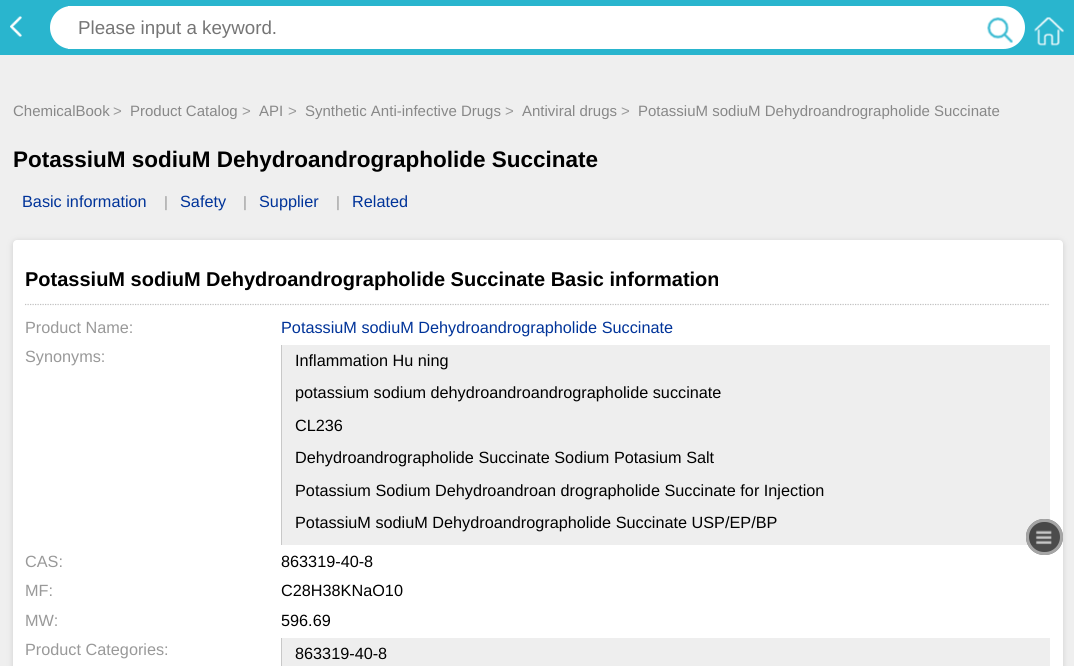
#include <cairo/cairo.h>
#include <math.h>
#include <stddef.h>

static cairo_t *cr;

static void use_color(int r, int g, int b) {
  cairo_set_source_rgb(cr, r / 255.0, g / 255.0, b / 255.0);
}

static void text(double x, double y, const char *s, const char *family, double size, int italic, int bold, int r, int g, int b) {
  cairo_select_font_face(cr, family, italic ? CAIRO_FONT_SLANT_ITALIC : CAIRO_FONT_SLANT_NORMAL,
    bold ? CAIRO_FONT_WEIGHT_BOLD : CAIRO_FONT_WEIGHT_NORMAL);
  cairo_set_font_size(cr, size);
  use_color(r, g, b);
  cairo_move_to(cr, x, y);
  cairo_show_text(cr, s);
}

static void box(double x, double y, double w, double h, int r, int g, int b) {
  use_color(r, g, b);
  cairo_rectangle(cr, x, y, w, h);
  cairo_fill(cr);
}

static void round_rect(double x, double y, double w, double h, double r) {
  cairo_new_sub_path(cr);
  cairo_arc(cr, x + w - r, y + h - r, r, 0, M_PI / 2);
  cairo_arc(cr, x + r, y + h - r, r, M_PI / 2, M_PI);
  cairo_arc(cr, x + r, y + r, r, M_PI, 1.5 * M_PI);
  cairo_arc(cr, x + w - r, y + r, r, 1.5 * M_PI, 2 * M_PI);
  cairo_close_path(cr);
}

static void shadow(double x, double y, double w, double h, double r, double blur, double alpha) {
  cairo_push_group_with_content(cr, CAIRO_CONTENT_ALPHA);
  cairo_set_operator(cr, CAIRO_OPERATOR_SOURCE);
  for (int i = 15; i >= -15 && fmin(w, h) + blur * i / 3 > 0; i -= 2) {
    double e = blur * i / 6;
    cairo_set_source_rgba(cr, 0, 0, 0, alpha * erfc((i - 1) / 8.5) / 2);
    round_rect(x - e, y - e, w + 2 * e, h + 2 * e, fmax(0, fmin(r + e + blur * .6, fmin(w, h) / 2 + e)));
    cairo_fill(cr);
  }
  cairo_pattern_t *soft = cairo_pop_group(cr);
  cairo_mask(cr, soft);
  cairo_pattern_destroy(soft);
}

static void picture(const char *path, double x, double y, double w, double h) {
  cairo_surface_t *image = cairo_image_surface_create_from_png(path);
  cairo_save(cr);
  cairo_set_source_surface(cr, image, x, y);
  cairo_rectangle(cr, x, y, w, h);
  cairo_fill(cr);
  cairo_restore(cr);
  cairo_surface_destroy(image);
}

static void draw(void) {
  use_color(239, 239, 239);
  cairo_paint(cr);
  box(0, 0, 1074, 55, 41, 181, 206);
  picture("img_01.png", 10, 16, 12, 21);
  use_color(255, 255, 255);
  round_rect(50, 6, 975, 43, 21.5);
  cairo_fill(cr);
  box(68, 6, 3, 43, 255, 255, 255);
  picture("img_02.png", 987, 17, 26, 26);
  picture("img_03.png", 1034, 17, 30, 29);
  use_color(206, 206, 206);
  shadow(13, 241, 1050, 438, 4, 3, 1);
  use_color(255, 255, 255);
  round_rect(13, 240, 1050, 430, 4);
  cairo_fill(cr);
  cairo_new_path(cr);
  cairo_move_to(cr, 25, 304.5);
  cairo_line_to(cr, 1050, 304.5);
  use_color(193, 193, 193);
  cairo_set_line_width(cr, 1.2);
  cairo_set_dash(cr, (double[]){1.25, 1.25}, 2, 0);
  cairo_stroke(cr);
  box(282, 345, 768, 200, 238, 238, 238);
  box(281, 345, 1, 200, 200, 200, 200);
  box(282, 638, 768, 28, 238, 238, 238);
  box(281, 638, 1, 28, 200, 200, 200);
  cairo_set_source_rgba(cr, 0, 0, 0, 0.7);
  round_rect(1026, 519, 37, 36, 18);
  cairo_fill(cr);
  picture("img_04.png", 1035, 530, 17, 15);
  round_rect(1027.5, 520.5, 34, 33, 16.5);
  cairo_set_source_rgba(cr, 0.8, 0.8, 0.8, 0.7);
  cairo_set_line_width(cr, 3);
  cairo_set_dash(cr, NULL, 0, 0);
  cairo_stroke(cr);
  text(78, 34, "Please input a keyword.", "Liberation Sans", 18.75, 0, 0, 117, 117, 117);
  text(13, 116, "ChemicalBook", "Liberation Sans", 15, 0, 0, 136, 136, 136);
  text(113, 116, ">", "Liberation Sans", 15, 0, 0, 153, 153, 153);
  text(130, 116, "Product Catalog", "Liberation Sans", 15, 0, 0, 136, 136, 136);
  text(242, 116, ">", "Liberation Sans", 15, 0, 0, 153, 153, 153);
  text(259, 116, "API", "Liberation Sans", 15, 0, 0, 136, 136, 136);
  text(288, 116, ">", "Liberation Sans", 15, 0, 0, 153, 153, 153);
  text(305, 116, "Synthetic Anti-infective Drugs", "Liberation Sans", 15, 0, 0, 136, 136, 136);
  text(505, 116, ">", "Liberation Sans", 15, 0, 0, 153, 153, 153);
  text(522, 116, "Antiviral drugs", "Liberation Sans", 15, 0, 0, 136, 136, 136);
  text(621, 116, ">", "Liberation Sans", 15, 0, 0, 153, 153, 153);
  text(638, 116, "PotassiuM sodiuM Dehydroandrographolide Succinate", "Liberation Sans", 15, 0, 0, 136, 136, 136);
  text(13, 167, "PotassiuM sodiuM Dehydroandrographolide Succinate", "Liberation Sans", 22.5, 0, 1, 0, 0, 0);
  text(22, 207, "Basic information", "Liberation Sans", 16.25, 0, 0, 0, 51, 153);
  text(164, 207, "|", "Liberation Sans", 15, 0, 0, 153, 153, 153);
  text(180, 207, "Safety", "Liberation Sans", 16.25, 0, 0, 0, 51, 153);
  text(243, 207, "|", "Liberation Sans", 15, 0, 0, 153, 153, 153);
  text(259, 207, "Supplier", "Liberation Sans", 16.25, 0, 0, 0, 51, 153);
  text(336, 207, "|", "Liberation Sans", 15, 0, 0, 153, 153, 153);
  text(352, 207, "Related", "Liberation Sans", 16.25, 0, 0, 0, 51, 153);
  text(25, 286, "PotassiuM sodiuM Dehydroandrographolide Succinate Basic information", "Liberation Sans", 20, 0, 1, 0, 0, 0);
  text(25, 333, "Product Name:", "Liberation Sans", 16.25, 0, 0, 153, 153, 153);
  text(281, 333, "PotassiuM sodiuM Dehydroandrographolide Succinate", "Liberation Sans", 16.25, 0, 0, 0, 51, 153);
  text(25, 362, "Synonyms:", "Liberation Sans", 16.25, 0, 0, 153, 153, 153);
  text(295, 366, "Inflammation Hu ning", "Liberation Sans", 16.25, 0, 0, 0, 0, 0);
  text(295, 398, "potassium sodium dehydroandroandrographolide succinate", "Liberation Sans", 16.25, 0, 0, 0, 0, 0);
  text(295, 431, "CL236", "Liberation Sans", 16.25, 0, 0, 0, 0, 0);
  text(295, 463, "Dehydroandrographolide Succinate Sodium Potasium Salt", "Liberation Sans", 16.25, 0, 0, 0, 0, 0);
  text(295, 496, "Potassium Sodium Dehydroandroan drographolide Succinate for Injection", "Liberation Sans", 16.25, 0, 0, 0, 0, 0);
  text(295, 528, "PotassiuM sodiuM Dehydroandrographolide Succinate USP/EP/BP", "Liberation Sans", 16.25, 0, 0, 0, 0, 0);
  text(25, 567, "CAS:", "Liberation Sans", 16.25, 0, 0, 153, 153, 153);
  text(281, 567, "863319-40-8", "Liberation Sans", 16.25, 0, 0, 0, 0, 0);
  text(25, 596, "MF:", "Liberation Sans", 16.25, 0, 0, 153, 153, 153);
  text(281, 596, "C28H38KNaO10", "Liberation Sans", 16.25, 0, 0, 0, 0, 0);
  text(25, 626, "MW:", "Liberation Sans", 16.25, 0, 0, 153, 153, 153);
  text(281, 626, "596.69", "Liberation Sans", 16.25, 0, 0, 0, 0, 0);
  text(25, 655, "Product Categories:", "Liberation Sans", 16.25, 0, 0, 153, 153, 153);
  text(295, 659, "863319-40-8", "Liberation Sans", 16.25, 0, 0, 0, 0, 0);
}

int main(void) {
  cairo_surface_t *surface = cairo_image_surface_create(CAIRO_FORMAT_RGB24, 1074, 666);
  cr = cairo_create(surface);
  cairo_font_options_t *options = cairo_font_options_create();
  cairo_font_options_set_hint_metrics(options, CAIRO_HINT_METRICS_OFF);
  cairo_font_options_set_hint_style(options, CAIRO_HINT_STYLE_NONE);
  cairo_set_font_options(cr, options);
  cairo_set_miter_limit(cr, 4);
  draw();
  cairo_surface_write_to_png(surface, "out.png");
  cairo_font_options_destroy(options);
  cairo_destroy(cr);
  cairo_surface_destroy(surface);
  return 0;
}
